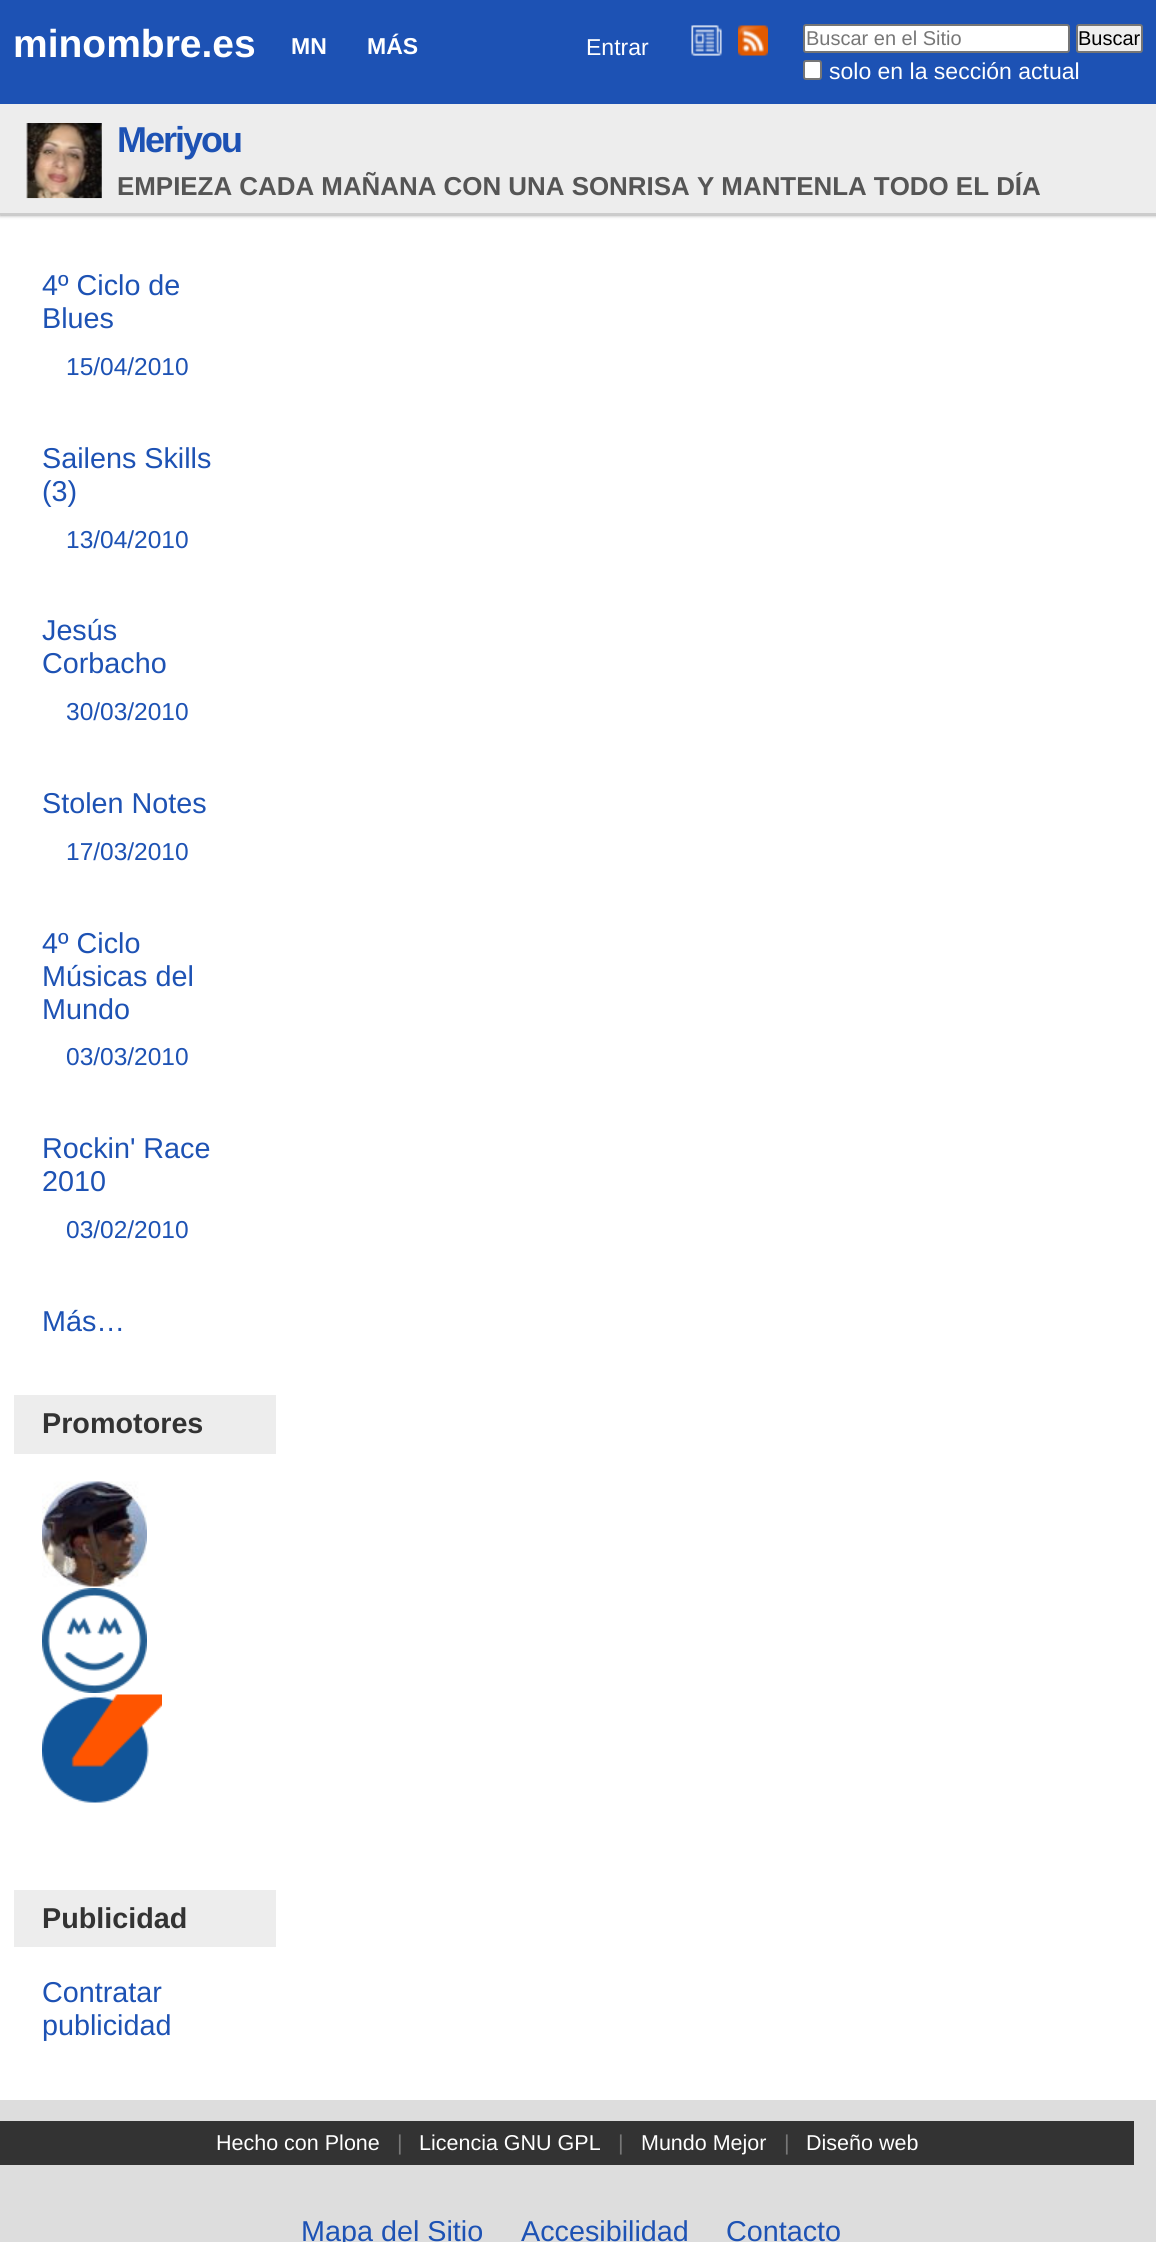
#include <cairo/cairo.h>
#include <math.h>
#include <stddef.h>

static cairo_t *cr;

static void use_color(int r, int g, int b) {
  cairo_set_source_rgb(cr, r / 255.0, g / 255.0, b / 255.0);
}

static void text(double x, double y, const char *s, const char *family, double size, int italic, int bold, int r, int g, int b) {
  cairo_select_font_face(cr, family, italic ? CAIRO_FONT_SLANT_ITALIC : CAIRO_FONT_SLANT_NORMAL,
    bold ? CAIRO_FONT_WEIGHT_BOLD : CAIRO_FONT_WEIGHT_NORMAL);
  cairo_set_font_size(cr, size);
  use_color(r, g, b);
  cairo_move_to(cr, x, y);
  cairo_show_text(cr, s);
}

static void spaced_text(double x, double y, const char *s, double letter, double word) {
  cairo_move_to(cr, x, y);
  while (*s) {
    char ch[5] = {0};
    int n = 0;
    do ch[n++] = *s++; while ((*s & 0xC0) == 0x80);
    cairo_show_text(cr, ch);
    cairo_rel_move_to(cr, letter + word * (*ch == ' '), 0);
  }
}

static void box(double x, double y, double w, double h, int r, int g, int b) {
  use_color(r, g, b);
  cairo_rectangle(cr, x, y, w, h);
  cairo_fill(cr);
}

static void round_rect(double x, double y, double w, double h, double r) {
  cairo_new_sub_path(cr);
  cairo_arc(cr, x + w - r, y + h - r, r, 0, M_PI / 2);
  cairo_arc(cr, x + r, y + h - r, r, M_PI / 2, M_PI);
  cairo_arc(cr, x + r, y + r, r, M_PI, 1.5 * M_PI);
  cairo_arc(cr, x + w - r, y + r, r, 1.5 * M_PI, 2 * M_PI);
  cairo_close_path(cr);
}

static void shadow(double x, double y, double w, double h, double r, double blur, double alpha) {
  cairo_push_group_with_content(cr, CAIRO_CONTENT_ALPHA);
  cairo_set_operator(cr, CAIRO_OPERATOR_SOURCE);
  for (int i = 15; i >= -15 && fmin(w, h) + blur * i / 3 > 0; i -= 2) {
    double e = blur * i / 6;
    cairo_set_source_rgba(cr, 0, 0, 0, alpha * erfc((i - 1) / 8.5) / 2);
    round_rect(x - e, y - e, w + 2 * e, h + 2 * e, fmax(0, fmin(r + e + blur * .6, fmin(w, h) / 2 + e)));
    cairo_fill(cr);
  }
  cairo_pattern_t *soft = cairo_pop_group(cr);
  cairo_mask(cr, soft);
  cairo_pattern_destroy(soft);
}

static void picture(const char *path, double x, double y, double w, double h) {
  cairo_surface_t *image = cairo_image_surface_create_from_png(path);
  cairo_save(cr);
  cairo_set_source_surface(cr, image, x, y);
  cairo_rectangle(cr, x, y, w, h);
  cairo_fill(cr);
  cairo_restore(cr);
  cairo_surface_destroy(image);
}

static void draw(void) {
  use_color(255, 255, 255);
  cairo_paint(cr);
  use_color(0, 0, 0);
  shadow(0, 0, 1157, 215, 0, 2, 0.5);
  box(0, 0, 1156, 104, 29, 82, 180);
  picture("img_01.png", 691, 25, 31, 31);
  picture("img_02.png", 738, 25, 30, 31);
  use_color(255, 255, 255);
  round_rect(804, 25, 265, 27, 2);
  cairo_fill_preserve(cr);
  use_color(118, 118, 118);
  cairo_stroke(cr);
  use_color(239, 239, 239);
  round_rect(1077, 25, 65, 27, 2);
  cairo_fill_preserve(cr);
  use_color(118, 118, 118);
  cairo_stroke(cr);
  use_color(255, 255, 255);
  round_rect(804, 61, 17, 18, 2);
  cairo_fill_preserve(cr);
  use_color(118, 118, 118);
  cairo_stroke(cr);
  box(0, 104, 1156, 109, 237, 237, 237);
  box(0, 213, 1156, 2, 204, 204, 204);
  picture("img_03.png", 26, 123, 76, 76);
  box(14, 1395, 262, 59, 237, 237, 237);
  picture("img_04.png", 42, 1481, 105, 106);
  picture("img_05.png", 42, 1588, 105, 105);
  picture("img_06.png", 42, 1694, 120, 109);
  box(14, 1890, 262, 57, 237, 237, 237);
  box(0, 2100, 1156, 142, 221, 221, 221);
  box(0, 2121, 1134, 44, 51, 51, 51);
  text(13, 57, "minombre.es", "Liberation Sans", 39, 0, 1, 255, 255, 255);
  text(291, 54, "MN", "Liberation Sans", 23, 0, 1, 255, 255, 255);
  text(367, 54, "MÁS", "Liberation Sans", 23, 0, 1, 255, 255, 255);
  text(586, 55, "Entrar", "Liberation Sans", 23, 0, 0, 255, 255, 255);
  text(806, 45, "Buscar en el Sitio", "Liberation Sans", 20, 0, 0, 119, 119, 119);
  text(1078, 45, "Buscar", "Liberation Sans", 20, 0, 0, 0, 0, 0);
  text(829, 79, "solo en la sección actual", "Liberation Sans", 23, 0, 0, 255, 255, 255);
  cairo_select_font_face(cr, "Liberation Sans", CAIRO_FONT_SLANT_NORMAL, CAIRO_FONT_WEIGHT_BOLD);
  cairo_set_font_size(cr, 36);
  use_color(29, 82, 180);
  spaced_text(117, 152, "Meriyou", -2, 0);
  text(117, 195, "EMPIEZA CADA MAÑANA CON UNA SONRISA Y MANTENLA TODO EL DÍA", "Liberation Sans", 25.9, 0, 1, 85, 85, 85);
  text(42, 295, "4º Ciclo de", "Liberation Sans", 28.75, 0, 0, 29, 82, 180);
  text(42, 328, "Blues", "Liberation Sans", 28.75, 0, 0, 29, 82, 180);
  text(66, 375, "15/04/2010", "Liberation Sans", 24.5, 0, 0, 29, 82, 180);
  text(42, 468, "Sailens Skills", "Liberation Sans", 28.75, 0, 0, 29, 82, 180);
  text(42, 501, "(3)", "Liberation Sans", 28.75, 0, 0, 29, 82, 180);
  text(66, 548, "13/04/2010", "Liberation Sans", 24.5, 0, 0, 29, 82, 180);
  text(42, 640, "Jesús", "Liberation Sans", 28.75, 0, 0, 29, 82, 180);
  text(42, 673, "Corbacho", "Liberation Sans", 28.75, 0, 0, 29, 82, 180);
  text(66, 720, "30/03/2010", "Liberation Sans", 24.5, 0, 0, 29, 82, 180);
  text(42, 813, "Stolen Notes", "Liberation Sans", 28.75, 0, 0, 29, 82, 180);
  text(66, 860, "17/03/2010", "Liberation Sans", 24.5, 0, 0, 29, 82, 180);
  text(42, 953, "4º Ciclo", "Liberation Sans", 28.75, 0, 0, 29, 82, 180);
  text(42, 986, "Músicas del", "Liberation Sans", 28.75, 0, 0, 29, 82, 180);
  text(42, 1019, "Mundo", "Liberation Sans", 28.75, 0, 0, 29, 82, 180);
  text(66, 1065, "03/03/2010", "Liberation Sans", 24.5, 0, 0, 29, 82, 180);
  text(42, 1158, "Rockin' Race", "Liberation Sans", 28.75, 0, 0, 29, 82, 180);
  text(42, 1191, "2010", "Liberation Sans", 28.75, 0, 0, 29, 82, 180);
  text(66, 1238, "03/02/2010", "Liberation Sans", 24.5, 0, 0, 29, 82, 180);
  text(42, 1331, "Más…", "Liberation Sans", 28.75, 0, 0, 29, 82, 180);
  text(42, 1433, "Promotores", "Liberation Sans", 28.75, 0, 1, 51, 51, 51);
  text(42, 1928, "Publicidad", "Liberation Sans", 28.75, 0, 1, 51, 51, 51);
  text(42, 2002, "Contratar", "Liberation Sans", 28.75, 0, 0, 29, 82, 180);
  text(42, 2035, "publicidad", "Liberation Sans", 28.75, 0, 0, 29, 82, 180);
  text(216, 2150, "Hecho con Plone", "Liberation Sans", 21.5, 0, 0, 255, 255, 255);
  text(397, 2150, "|", "Liberation Sans", 21.5, 0, 0, 119, 119, 119);
  text(419, 2150, "Licencia GNU GPL", "Liberation Sans", 21.5, 0, 0, 255, 255, 255);
  text(618, 2150, "|", "Liberation Sans", 21.5, 0, 0, 119, 119, 119);
  text(641, 2150, "Mundo Mejor", "Liberation Sans", 21.5, 0, 0, 255, 255, 255);
  text(784, 2150, "|", "Liberation Sans", 21.5, 0, 0, 119, 119, 119);
  text(806, 2150, "Diseño web", "Liberation Sans", 21.5, 0, 0, 255, 255, 255);
  text(301, 2241, "Mapa del Sitio", "Liberation Sans", 28.75, 0, 0, 29, 82, 180);
  text(521, 2241, "Accesibilidad", "Liberation Sans", 28.75, 0, 0, 29, 82, 180);
  text(726, 2241, "Contacto", "Liberation Sans", 28.75, 0, 0, 29, 82, 180);
}

int main(void) {
  cairo_surface_t *surface = cairo_image_surface_create(CAIRO_FORMAT_RGB24, 1156, 2242);
  cr = cairo_create(surface);
  cairo_font_options_t *options = cairo_font_options_create();
  cairo_font_options_set_hint_metrics(options, CAIRO_HINT_METRICS_OFF);
  cairo_font_options_set_hint_style(options, CAIRO_HINT_STYLE_NONE);
  cairo_set_font_options(cr, options);
  cairo_set_miter_limit(cr, 4);
  draw();
  cairo_surface_write_to_png(surface, "out.png");
  cairo_font_options_destroy(options);
  cairo_destroy(cr);
  cairo_surface_destroy(surface);
  return 0;
}
